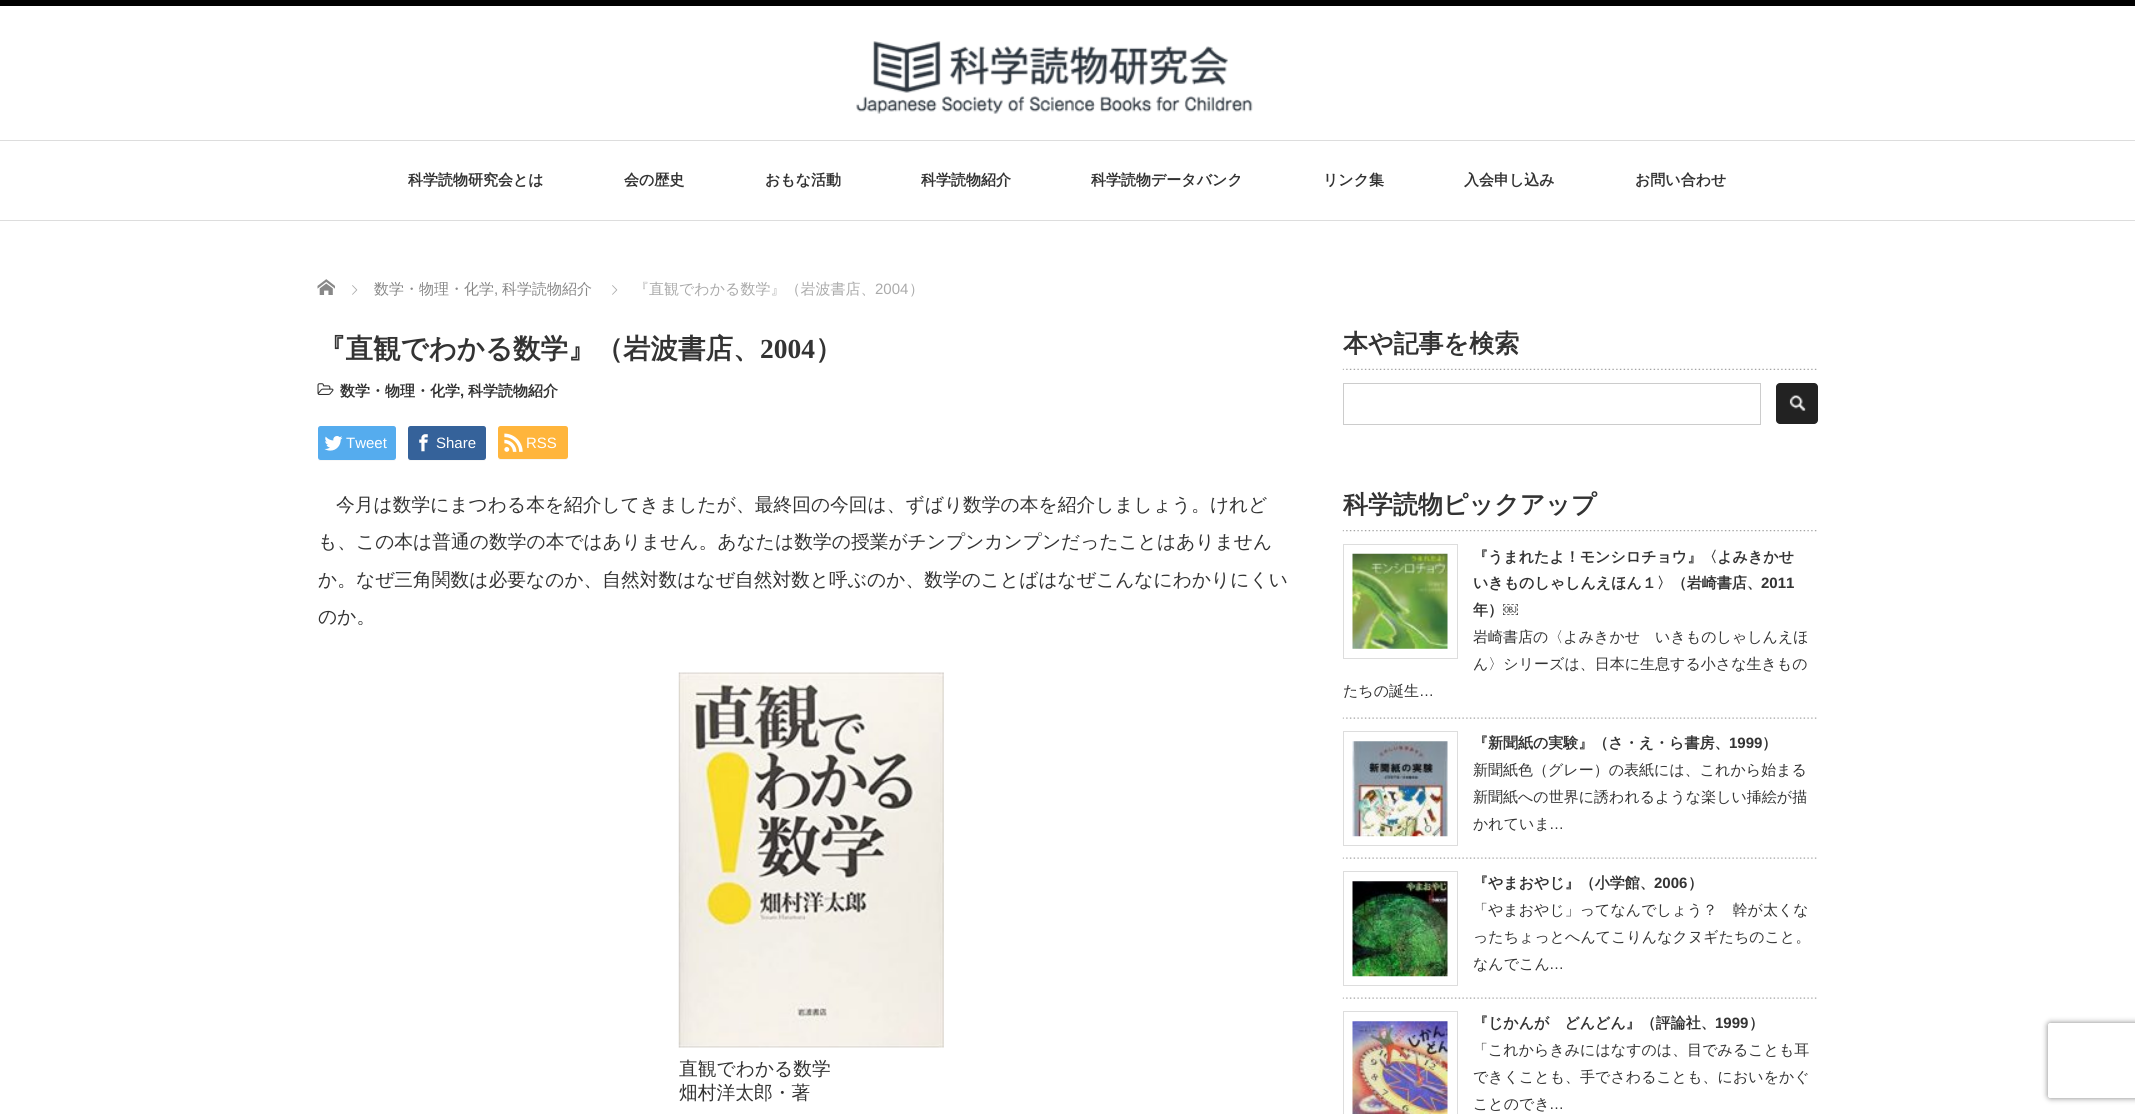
#include <cairo/cairo.h>
#include <math.h>
#include <stddef.h>

static cairo_t *cr;

static void use_color(int r, int g, int b) {
  cairo_set_source_rgb(cr, r / 255.0, g / 255.0, b / 255.0);
}

static void text(double x, double y, const char *s, const char *family, double size, int italic, int bold, int r, int g, int b) {
  cairo_select_font_face(cr, family, italic ? CAIRO_FONT_SLANT_ITALIC : CAIRO_FONT_SLANT_NORMAL,
    bold ? CAIRO_FONT_WEIGHT_BOLD : CAIRO_FONT_WEIGHT_NORMAL);
  cairo_set_font_size(cr, size);
  use_color(r, g, b);
  cairo_move_to(cr, x, y);
  cairo_show_text(cr, s);
}

static void box(double x, double y, double w, double h, int r, int g, int b) {
  use_color(r, g, b);
  cairo_rectangle(cr, x, y, w, h);
  cairo_fill(cr);
}

static void round_rect(double x, double y, double w, double h, double r) {
  cairo_new_sub_path(cr);
  cairo_arc(cr, x + w - r, y + h - r, r, 0, M_PI / 2);
  cairo_arc(cr, x + r, y + h - r, r, M_PI / 2, M_PI);
  cairo_arc(cr, x + r, y + r, r, M_PI, 1.5 * M_PI);
  cairo_arc(cr, x + w - r, y + r, r, 1.5 * M_PI, 2 * M_PI);
  cairo_close_path(cr);
}

static void shadow(double x, double y, double w, double h, double r, double blur, double alpha) {
  cairo_push_group_with_content(cr, CAIRO_CONTENT_ALPHA);
  cairo_set_operator(cr, CAIRO_OPERATOR_SOURCE);
  for (int i = 15; i >= -15 && fmin(w, h) + blur * i / 3 > 0; i -= 2) {
    double e = blur * i / 6;
    cairo_set_source_rgba(cr, 0, 0, 0, alpha * erfc((i - 1) / 8.5) / 2);
    round_rect(x - e, y - e, w + 2 * e, h + 2 * e, fmax(0, fmin(r + e + blur * .6, fmin(w, h) / 2 + e)));
    cairo_fill(cr);
  }
  cairo_pattern_t *soft = cairo_pop_group(cr);
  cairo_mask(cr, soft);
  cairo_pattern_destroy(soft);
}

static void picture(const char *path, double x, double y, double w, double h) {
  cairo_surface_t *image = cairo_image_surface_create_from_png(path);
  cairo_save(cr);
  cairo_set_source_surface(cr, image, x, y);
  cairo_rectangle(cr, x, y, w, h);
  cairo_fill(cr);
  cairo_restore(cr);
  cairo_surface_destroy(image);
}

static void draw(void) {
  use_color(255, 255, 255);
  cairo_paint(cr);
  box(0, 0, 2135, 6, 0, 0, 0);
  box(0, 220, 2135, 1, 221, 221, 221);
  picture("img_01.png", 856, 41, 397, 73);
  box(0, 140, 2135, 1, 221, 221, 221);
  picture("img_02.png", 317, 279, 18, 16);
  picture("img_03.png", 352, 285, 6, 10);
  picture("img_03.png", 612, 285, 6, 10);
  picture("img_04.png", 317, 383, 17, 12);
  use_color(247, 247, 247);
  cairo_new_path(cr);
  cairo_move_to(cr, 318, 459);
  cairo_curve_to(cr, 318, 460, 319, 461, 320, 461);
  cairo_line_to(cr, 394, 461);
  cairo_curve_to(cr, 395, 461, 396, 460, 396, 459);
  cairo_line_to(cr, 395, 460);
  cairo_line_to(cr, 320, 460);
  cairo_close_path(cr);
  cairo_fill(cr);
  use_color(85, 172, 238);
  round_rect(318, 426, 78, 34, 2.5);
  cairo_fill(cr);
  picture("img_05.png", 324, 436, 19, 15);
  use_color(247, 247, 247);
  cairo_new_path(cr);
  cairo_move_to(cr, 408, 459);
  cairo_curve_to(cr, 408, 460, 409, 461, 410, 461);
  cairo_line_to(cr, 484, 461);
  cairo_curve_to(cr, 485, 461, 486, 460, 486, 459);
  cairo_line_to(cr, 485, 460);
  cairo_line_to(cr, 410, 460);
  cairo_close_path(cr);
  cairo_fill(cr);
  use_color(53, 98, 154);
  round_rect(408, 426, 78, 34, 2.5);
  cairo_fill(cr);
  picture("img_06.png", 419, 434, 9, 18);
  use_color(247, 247, 247);
  cairo_new_path(cr);
  cairo_move_to(cr, 498, 458);
  cairo_curve_to(cr, 498, 459, 499, 460, 500, 460);
  cairo_line_to(cr, 566, 460);
  cairo_curve_to(cr, 567, 460, 568, 459, 568, 458);
  cairo_line_to(cr, 568, 430);
  cairo_line_to(cr, 568, 429);
  cairo_line_to(cr, 568, 456);
  cairo_curve_to(cr, 568, 458, 566, 459, 565, 459);
  cairo_line_to(cr, 500, 459);
  cairo_curve_to(cr, 499, 459, 498, 458, 498, 458);
  cairo_close_path(cr);
  cairo_fill(cr);
  use_color(255, 181, 60);
  round_rect(498, 426, 70, 33, 2.5);
  cairo_fill(cr);
  picture("img_07.png", 504, 433, 19, 19);
  picture("img_08.png", 678, 672, 266, 376);
  picture("img_09.png", 1342, 368, 475, 2);
  cairo_rectangle(cr, 1343.5, 383.5, 417, 41);
  use_color(204, 204, 204);
  cairo_set_line_width(cr, 1);
  cairo_stroke(cr);
  use_color(34, 34, 34);
  round_rect(1776, 383, 42, 41, 4);
  cairo_fill(cr);
  picture("img_10.png", 1789, 395, 17, 16);
  picture("img_11.png", 1342, 530, 475, 2);
  picture("img_12.png", 1342, 717, 475, 2);
  cairo_rectangle(cr, 1343.5, 544.5, 114, 114);
  use_color(221, 221, 221);
  cairo_stroke(cr);
  picture("img_13.png", 1352, 553, 96, 96);
  picture("img_12.png", 1342, 857, 475, 2);
  cairo_rectangle(cr, 1343.5, 731.5, 114, 114);
  cairo_stroke(cr);
  picture("img_14.png", 1352, 741, 96, 96);
  picture("img_12.png", 1342, 997, 475, 2);
  cairo_rectangle(cr, 1343.5, 871.5, 114, 114);
  cairo_stroke(cr);
  picture("img_15.png", 1352, 881, 96, 96);
  cairo_rectangle(cr, 1343.5, 1011.5, 114, 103);
  cairo_stroke(cr);
  picture("img_16.png", 1352, 1021, 96, 93);
  cairo_save(cr);
  cairo_set_fill_rule(cr, CAIRO_FILL_RULE_EVEN_ODD);
  cairo_new_path(cr);
  cairo_move_to(cr, 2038, 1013);
  cairo_line_to(cr, 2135, 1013);
  cairo_line_to(cr, 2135, 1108);
  cairo_line_to(cr, 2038, 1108);
  cairo_close_path(cr);
  cairo_move_to(cr, 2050.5, 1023);
  cairo_line_to(cr, 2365.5, 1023);
  cairo_curve_to(cr, 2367, 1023, 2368, 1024, 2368, 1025.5);
  cairo_line_to(cr, 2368, 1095.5);
  cairo_curve_to(cr, 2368, 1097, 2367, 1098, 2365.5, 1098);
  cairo_line_to(cr, 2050.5, 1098);
  cairo_curve_to(cr, 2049, 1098, 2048, 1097, 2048, 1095.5);
  cairo_line_to(cr, 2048, 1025.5);
  cairo_curve_to(cr, 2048, 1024, 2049, 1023, 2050.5, 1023);
  cairo_close_path(cr);
  cairo_clip(cr);
  use_color(128, 128, 128);
  shadow(2048, 1023, 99, 75, 2.5, 3, 1);
  cairo_restore(cr);
  text(408, 185, "科学読物研究会とは", "WenQuanYi Zen Hei", 15, 0, 1, 51, 51, 51);
  text(624, 185, "会の歴史", "WenQuanYi Zen Hei", 15, 0, 1, 51, 51, 51);
  text(765, 185, "おもな活動", "WenQuanYi Zen Hei", 15, 0, 1, 51, 51, 51);
  text(921, 185, "科学読物紹介", "WenQuanYi Zen Hei", 15, 0, 1, 51, 51, 51);
  text(1091, 185, "科学読物データバンク", "WenQuanYi Zen Hei", 15, 0, 1, 51, 51, 51);
  text(1323, 185, "リンク集", "WenQuanYi Zen Hei", 15, 0, 1, 51, 51, 51);
  text(1464, 185, "入会申し込み", "WenQuanYi Zen Hei", 15, 0, 1, 51, 51, 51);
  text(1635, 185, "お問い合わせ", "WenQuanYi Zen Hei", 15, 0, 1, 51, 51, 51);
  text(374, 294, "数学・物理・化学", "WenQuanYi Zen Hei Medium", 15, 0, 0, 136, 136, 136);
  text(494, 294, ",", "Liberation Sans", 15, 0, 0, 136, 136, 136);
  text(502, 294, "科学読物紹介", "WenQuanYi Zen Hei Medium", 15, 0, 0, 136, 136, 136);
  text(634, 294, "『直観でわかる数学』（岩波書店、", "WenQuanYi Zen Hei Medium", 15, 0, 0, 170, 170, 170);
  text(875, 294, "2004", "Liberation Sans", 15, 0, 0, 170, 170, 170);
  text(909, 294, "）", "WenQuanYi Zen Hei Medium", 15, 0, 0, 170, 170, 170);
  text(318, 358, "『直観でわかる数学』（岩波書店、", "WenQuanYi Zen Hei", 27.5, 0, 1, 51, 51, 51);
  text(760, 358, "2004", "Liberation Serif", 27.5, 0, 1, 51, 51, 51);
  text(815, 358, "）", "WenQuanYi Zen Hei", 27.5, 0, 1, 51, 51, 51);
  text(340, 396, "数学・物理・化学", "WenQuanYi Zen Hei", 15, 0, 1, 51, 51, 51);
  text(460, 396, ",", "Liberation Sans", 15, 0, 1, 51, 51, 51);
  text(468, 396, "科学読物紹介", "WenQuanYi Zen Hei", 15, 0, 1, 51, 51, 51);
  text(346, 448, "Tweet", "Liberation Sans", 15, 0, 0, 255, 255, 255);
  text(436, 448, "Share", "Liberation Sans", 15, 0, 0, 255, 255, 255);
  text(526, 448, "RSS", "Liberation Sans", 15, 0, 0, 255, 255, 255);
  text(336, 511, "今月は数学にまつわる本を紹介してきましたが、最終回の今回は、ずばり数学の本を紹介しましょう。けれど", "WenQuanYi Zen Hei Medium", 18.75, 0, 0, 51, 51, 51);
  text(318, 548, "も、この本は普通の数学の本ではありません。あなたは数学の授業がチンプンカンプンだったことはありません", "WenQuanYi Zen Hei Medium", 18.75, 0, 0, 51, 51, 51);
  text(318, 586, "か。なぜ三角関数は必要なのか、自然対数はなぜ自然対数と呼ぶのか、数学のことばはなぜこんなにわかりにくい", "WenQuanYi Zen Hei Medium", 18.75, 0, 0, 51, 51, 51);
  text(318, 623, "のか。", "WenQuanYi Zen Hei Medium", 18.75, 0, 0, 51, 51, 51);
  text(679, 1075, "直観でわかる数学", "WenQuanYi Zen Hei Medium", 18.75, 0, 0, 51, 51, 51);
  text(679, 1099, "畑村洋太郎・著", "WenQuanYi Zen Hei Medium", 18.75, 0, 0, 51, 51, 51);
  text(1343, 352, "本や記事を検索", "WenQuanYi Zen Hei", 25, 0, 1, 51, 51, 51);
  text(1343, 513, "科学読物ピックアップ", "WenQuanYi Zen Hei", 25, 0, 1, 51, 51, 51);
  text(1473, 562, "『うまれたよ！モンシロチョウ』〈よみきかせ", "WenQuanYi Zen Hei", 15, 0, 1, 51, 51, 51);
  text(1473, 588, "いきものしゃしんえほん１〉（岩崎書店、", "WenQuanYi Zen Hei", 15, 0, 1, 51, 51, 51);
  text(1761, 588, "2011", "Liberation Sans", 15, 0, 1, 51, 51, 51);
  text(1473, 615, "年）", "WenQuanYi Zen Hei", 15, 0, 1, 51, 51, 51);
  text(1503, 615, "￼", "Liberation Sans", 15, 0, 1, 51, 51, 51);
  text(1473, 642, "岩崎書店の〈よみきかせ　いきものしゃしんえほ", "WenQuanYi Zen Hei Medium", 15, 0, 0, 51, 51, 51);
  text(1473, 669, "ん〉シリーズは、日本に生息する小さな生きもの", "WenQuanYi Zen Hei Medium", 15, 0, 0, 51, 51, 51);
  text(1343, 696, "たちの誕生", "WenQuanYi Zen Hei Medium", 15, 0, 0, 51, 51, 51);
  text(1419, 696, "…", "Liberation Sans", 15, 0, 0, 51, 51, 51);
  text(1473, 748, "『新聞紙の実験』（さ・え・ら書房、", "WenQuanYi Zen Hei", 15, 0, 1, 51, 51, 51);
  text(1729, 748, "1999", "Liberation Sans", 15, 0, 1, 51, 51, 51);
  text(1762, 748, "）", "WenQuanYi Zen Hei", 15, 0, 1, 51, 51, 51);
  text(1473, 775, "新聞紙色（グレー）の表紙には、これから始まる", "WenQuanYi Zen Hei Medium", 15, 0, 0, 51, 51, 51);
  text(1473, 802, "新聞紙への世界に誘われるような楽しい挿絵が描", "WenQuanYi Zen Hei Medium", 15, 0, 0, 51, 51, 51);
  text(1473, 829, "かれていま", "WenQuanYi Zen Hei Medium", 15, 0, 0, 51, 51, 51);
  text(1549, 829, "…", "Liberation Sans", 15, 0, 0, 51, 51, 51);
  text(1473, 888, "『やまおやじ』（小学館、", "WenQuanYi Zen Hei", 15, 0, 1, 51, 51, 51);
  text(1654, 888, "2006", "Liberation Sans", 15, 0, 1, 51, 51, 51);
  text(1688, 888, "）", "WenQuanYi Zen Hei", 15, 0, 1, 51, 51, 51);
  text(1473, 915, "「やまおやじ」ってなんでしょう？　幹が太くな", "WenQuanYi Zen Hei Medium", 15, 0, 0, 51, 51, 51);
  text(1473, 942, "ったちょっとへんてこりんなクヌギたちのこと。", "WenQuanYi Zen Hei Medium", 15, 0, 0, 51, 51, 51);
  text(1473, 969, "なんでこん", "WenQuanYi Zen Hei Medium", 15, 0, 0, 51, 51, 51);
  text(1549, 969, "…", "Liberation Sans", 15, 0, 0, 51, 51, 51);
  text(1473, 1028, "『じかんが　どんどん』（評論社、", "WenQuanYi Zen Hei", 15, 0, 1, 51, 51, 51);
  text(1715, 1028, "1999", "Liberation Sans", 15, 0, 1, 51, 51, 51);
  text(1749, 1028, "）", "WenQuanYi Zen Hei", 15, 0, 1, 51, 51, 51);
  text(1473, 1055, "「これからきみにはなすのは、目でみることも耳", "WenQuanYi Zen Hei Medium", 15, 0, 0, 51, 51, 51);
  text(1473, 1082, "できくことも、手でさわることも、においをかぐ", "WenQuanYi Zen Hei Medium", 15, 0, 0, 51, 51, 51);
  text(1473, 1109, "ことのでき", "WenQuanYi Zen Hei Medium", 15, 0, 0, 51, 51, 51);
  text(1549, 1109, "…", "Liberation Sans", 15, 0, 0, 51, 51, 51);
}

int main(void) {
  cairo_surface_t *surface = cairo_image_surface_create(CAIRO_FORMAT_RGB24, 2135, 1114);
  cr = cairo_create(surface);
  cairo_font_options_t *options = cairo_font_options_create();
  cairo_font_options_set_hint_metrics(options, CAIRO_HINT_METRICS_OFF);
  cairo_font_options_set_hint_style(options, CAIRO_HINT_STYLE_NONE);
  cairo_set_font_options(cr, options);
  cairo_set_miter_limit(cr, 4);
  draw();
  cairo_surface_write_to_png(surface, "out.png");
  cairo_font_options_destroy(options);
  cairo_destroy(cr);
  cairo_surface_destroy(surface);
  return 0;
}
